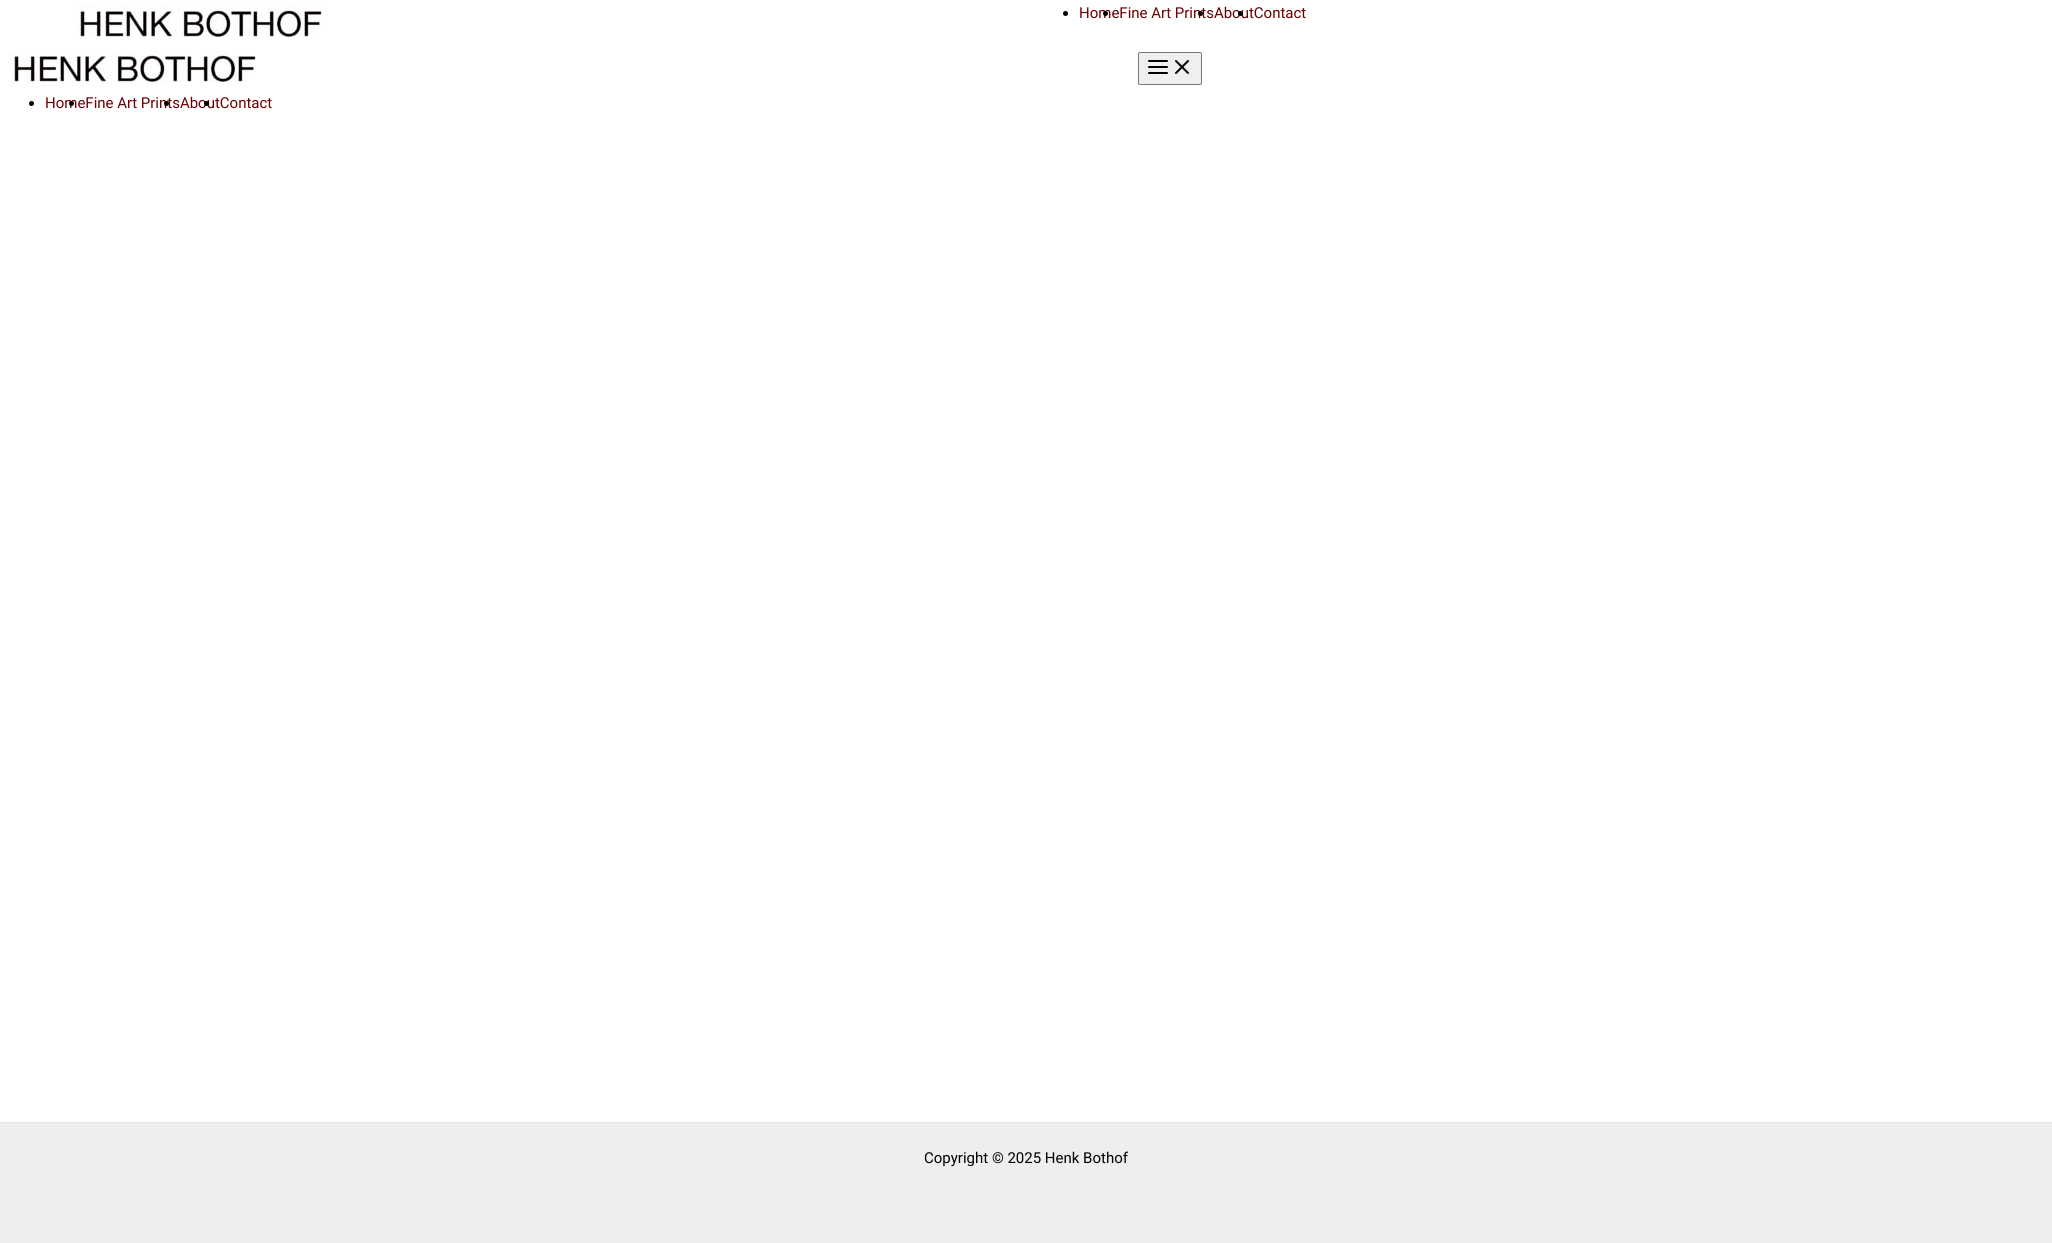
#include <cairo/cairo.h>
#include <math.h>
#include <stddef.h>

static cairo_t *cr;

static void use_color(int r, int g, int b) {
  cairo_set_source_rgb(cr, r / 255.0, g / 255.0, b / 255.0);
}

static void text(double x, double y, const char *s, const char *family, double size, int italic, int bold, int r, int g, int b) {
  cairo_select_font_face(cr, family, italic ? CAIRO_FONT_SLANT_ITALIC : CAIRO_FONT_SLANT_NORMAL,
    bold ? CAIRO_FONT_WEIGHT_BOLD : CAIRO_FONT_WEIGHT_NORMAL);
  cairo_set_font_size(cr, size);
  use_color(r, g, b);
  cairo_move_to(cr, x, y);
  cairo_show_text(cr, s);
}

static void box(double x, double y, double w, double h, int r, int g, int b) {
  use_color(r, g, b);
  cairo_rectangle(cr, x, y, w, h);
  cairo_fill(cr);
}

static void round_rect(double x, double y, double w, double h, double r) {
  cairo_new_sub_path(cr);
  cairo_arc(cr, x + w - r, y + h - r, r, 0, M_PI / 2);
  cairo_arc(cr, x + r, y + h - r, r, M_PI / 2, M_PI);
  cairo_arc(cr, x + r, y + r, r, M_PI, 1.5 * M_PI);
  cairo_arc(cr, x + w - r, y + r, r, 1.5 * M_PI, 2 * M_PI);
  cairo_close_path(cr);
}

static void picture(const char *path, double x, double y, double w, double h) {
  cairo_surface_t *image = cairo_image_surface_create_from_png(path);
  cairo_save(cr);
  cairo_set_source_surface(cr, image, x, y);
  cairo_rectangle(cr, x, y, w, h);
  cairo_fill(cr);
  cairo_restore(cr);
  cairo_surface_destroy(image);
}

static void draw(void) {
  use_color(255, 255, 255);
  cairo_paint(cr);
  picture("img_01.png", 74, 5, 248, 32);
  use_color(0, 0, 0);
  cairo_arc(cr, 1065.5, 13.5, 2.5, 0, 2 * M_PI);
  cairo_fill(cr);
  picture("img_01.png", 8, 50, 248, 32);
  use_color(239, 239, 239);
  round_rect(1138.5, 52.5, 63, 32, 1.5);
  cairo_fill_preserve(cr);
  use_color(118, 118, 118);
  cairo_set_line_width(cr, 1);
  cairo_stroke(cr);
  picture("img_02.png", 1148, 60, 20, 14);
  picture("img_03.png", 1175, 60, 14, 14);
  use_color(0, 0, 0);
  cairo_arc(cr, 31.5, 103.5, 2.5, 0, 2 * M_PI);
  cairo_fill(cr);
  box(0, 1123, 2052, 120, 238, 238, 238);
  box(0, 1122, 2052, 1, 229, 229, 229);
  text(1079, 18, "HomeFine Art PrintsAboutContact", "Roboto", 15, 0, 0, 107, 0, 0);
  use_color(0, 0, 0);
  cairo_new_path(cr);
  cairo_arc(cr, 1105.5, 13.5, 2.5, 0, 2 * M_PI);
  cairo_fill(cr);
  cairo_arc(cr, 1200.5, 13.5, 2.5, 0, 2 * M_PI);
  cairo_fill(cr);
  cairo_arc(cr, 1240.5, 13.5, 2.5, 0, 2 * M_PI);
  cairo_fill(cr);
  text(45, 108, "HomeFine Art PrintsAboutContact", "Roboto", 15, 0, 0, 107, 0, 0);
  use_color(0, 0, 0);
  cairo_new_path(cr);
  cairo_arc(cr, 71.5, 103.5, 2.5, 0, 2 * M_PI);
  cairo_fill(cr);
  cairo_arc(cr, 166.5, 103.5, 2.5, 0, 2 * M_PI);
  cairo_fill(cr);
  cairo_arc(cr, 206.5, 103.5, 2.5, 0, 2 * M_PI);
  cairo_fill(cr);
  text(924, 1163, "Copyright © 2025 Henk Bothof", "Roboto", 15, 0, 0, 0, 0, 0);
}

int main(void) {
  cairo_surface_t *surface = cairo_image_surface_create(CAIRO_FORMAT_RGB24, 2052, 1243);
  cr = cairo_create(surface);
  cairo_font_options_t *options = cairo_font_options_create();
  cairo_font_options_set_hint_metrics(options, CAIRO_HINT_METRICS_OFF);
  cairo_font_options_set_hint_style(options, CAIRO_HINT_STYLE_NONE);
  cairo_set_font_options(cr, options);
  cairo_set_miter_limit(cr, 4);
  draw();
  cairo_surface_write_to_png(surface, "out.png");
  cairo_font_options_destroy(options);
  cairo_destroy(cr);
  cairo_surface_destroy(surface);
  return 0;
}
